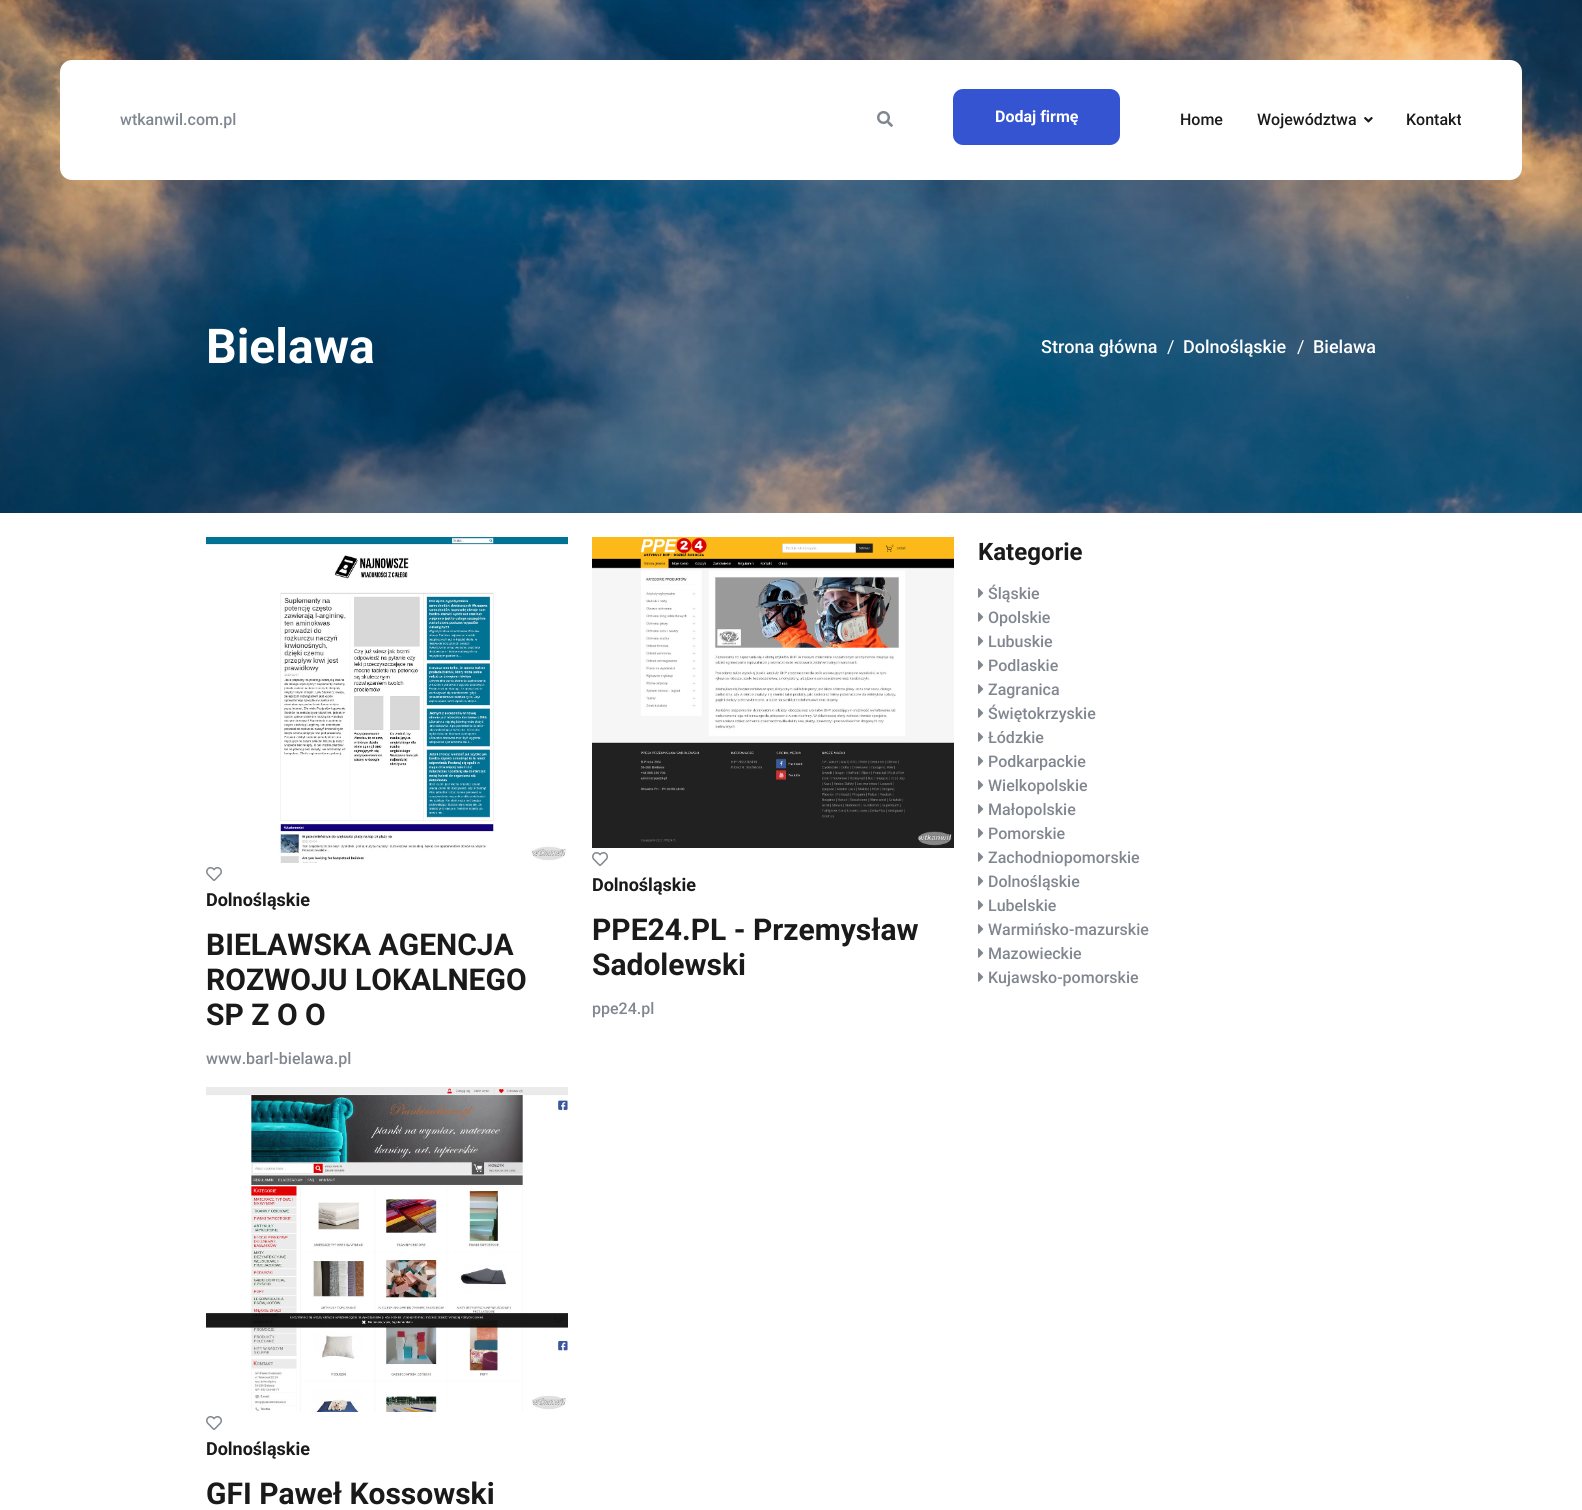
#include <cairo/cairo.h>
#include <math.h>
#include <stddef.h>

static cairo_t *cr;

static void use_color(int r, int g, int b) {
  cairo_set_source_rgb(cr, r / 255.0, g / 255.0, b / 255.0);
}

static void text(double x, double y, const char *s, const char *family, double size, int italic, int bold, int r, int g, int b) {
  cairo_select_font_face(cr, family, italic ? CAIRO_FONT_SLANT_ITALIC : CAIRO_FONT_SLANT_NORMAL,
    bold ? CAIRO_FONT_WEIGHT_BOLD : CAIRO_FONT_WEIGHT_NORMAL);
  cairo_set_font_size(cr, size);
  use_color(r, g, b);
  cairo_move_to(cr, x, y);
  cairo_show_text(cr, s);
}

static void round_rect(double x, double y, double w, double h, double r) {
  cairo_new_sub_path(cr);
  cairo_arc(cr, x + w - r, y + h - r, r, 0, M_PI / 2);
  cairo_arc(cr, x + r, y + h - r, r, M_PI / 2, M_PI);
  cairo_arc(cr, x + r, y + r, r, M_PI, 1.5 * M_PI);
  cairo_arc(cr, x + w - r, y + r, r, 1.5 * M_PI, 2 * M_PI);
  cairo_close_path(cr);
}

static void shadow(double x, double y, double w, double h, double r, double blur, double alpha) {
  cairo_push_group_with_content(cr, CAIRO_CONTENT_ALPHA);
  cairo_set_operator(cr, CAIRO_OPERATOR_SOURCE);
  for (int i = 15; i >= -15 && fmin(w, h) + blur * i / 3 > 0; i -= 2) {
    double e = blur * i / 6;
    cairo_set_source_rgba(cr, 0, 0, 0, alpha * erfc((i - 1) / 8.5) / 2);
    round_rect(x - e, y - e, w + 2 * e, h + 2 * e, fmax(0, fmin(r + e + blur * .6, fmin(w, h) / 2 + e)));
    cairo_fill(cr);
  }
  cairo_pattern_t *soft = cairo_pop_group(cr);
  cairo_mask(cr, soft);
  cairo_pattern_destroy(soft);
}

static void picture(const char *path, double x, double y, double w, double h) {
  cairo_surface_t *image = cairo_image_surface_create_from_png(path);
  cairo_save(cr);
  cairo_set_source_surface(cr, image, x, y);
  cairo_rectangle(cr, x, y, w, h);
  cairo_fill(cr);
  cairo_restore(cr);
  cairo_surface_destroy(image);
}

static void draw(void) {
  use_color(255, 255, 255);
  cairo_paint(cr);
  picture("img_03.png", 0, 0, 1582, 513);
  use_color(0, 0, 0);
  shadow(58, 61, 1466, 124, 14, 49, 0.08);
  use_color(255, 255, 255);
  round_rect(60, 60, 1462, 120, 12);
  cairo_fill(cr);
  picture("img_01.png", 877, 111, 16, 16);
  use_color(52, 84, 209);
  round_rect(953, 89, 167, 56, 10);
  cairo_fill(cr);
  picture("img_02.png", 1364, 117, 9, 6);
  picture("img_04.png", 978, 588, 6, 10);
  picture("img_04.png", 978, 612, 6, 10);
  picture("img_04.png", 978, 636, 6, 10);
  picture("img_04.png", 978, 660, 6, 10);
  picture("img_04.png", 978, 684, 6, 10);
  picture("img_04.png", 978, 708, 6, 10);
  picture("img_04.png", 978, 732, 6, 10);
  picture("img_04.png", 978, 756, 6, 10);
  picture("img_04.png", 978, 780, 6, 10);
  picture("img_04.png", 978, 804, 6, 10);
  picture("img_04.png", 978, 828, 6, 10);
  picture("img_04.png", 978, 852, 6, 10);
  picture("img_04.png", 978, 876, 6, 10);
  picture("img_04.png", 978, 900, 6, 10);
  picture("img_04.png", 978, 924, 6, 10);
  picture("img_04.png", 978, 948, 6, 10);
  picture("img_04.png", 978, 972, 6, 10);
  picture("img_05.png", 206, 537, 362, 326);
  picture("img_06.png", 206, 867, 16, 14);
  picture("img_07.png", 592, 537, 362, 311);
  picture("img_06.png", 592, 852, 16, 14);
  picture("img_08.png", 206, 1087, 362, 325);
  picture("img_06.png", 206, 1416, 16, 14);
  text(120, 125, "wtkanwil.com.pl", "Roboto Medium", 16, 0, 0, 129, 135, 144);
  text(995, 122, "Dodaj firmę", "Roboto", 16, 0, 1, 255, 255, 255);
  text(1180, 125, "Home", "Roboto Medium", 16, 0, 0, 26, 26, 26);
  text(1257, 125, "Województwa", "Roboto Medium", 16, 0, 0, 26, 26, 26);
  text(1406, 125, "Kontakt", "Roboto Medium", 16, 0, 0, 26, 26, 26);
  text(206, 363, "Bielawa", "Roboto", 48, 0, 1, 255, 255, 255);
  text(1041, 353, "Strona główna", "Roboto Medium", 18, 0, 0, 255, 255, 255);
  text(1167, 353, "/", "Roboto", 18, 0, 0, 255, 255, 255);
  text(1183, 353, "Dolnośląskie", "Roboto Medium", 18, 0, 0, 255, 255, 255);
  text(1297, 353, "/", "Roboto", 18, 0, 0, 255, 255, 255);
  text(1313, 353, "Bielawa", "Roboto Medium", 18, 0, 0, 255, 255, 255);
  text(978, 560, "Kategorie", "Roboto", 24, 0, 1, 26, 26, 26);
  text(988, 599, "Śląskie", "Roboto Medium", 16, 0, 0, 129, 135, 144);
  text(988, 623, "Opolskie", "Roboto Medium", 16, 0, 0, 129, 135, 144);
  text(988, 647, "Lubuskie", "Roboto Medium", 16, 0, 0, 129, 135, 144);
  text(988, 671, "Podlaskie", "Roboto Medium", 16, 0, 0, 129, 135, 144);
  text(988, 695, "Zagranica", "Roboto Medium", 16, 0, 0, 129, 135, 144);
  text(988, 719, "Świętokrzyskie", "Roboto Medium", 16, 0, 0, 129, 135, 144);
  text(988, 743, "Łódzkie", "Roboto Medium", 16, 0, 0, 129, 135, 144);
  text(988, 767, "Podkarpackie", "Roboto Medium", 16, 0, 0, 129, 135, 144);
  text(988, 791, "Wielkopolskie", "Roboto Medium", 16, 0, 0, 129, 135, 144);
  text(988, 815, "Małopolskie", "Roboto Medium", 16, 0, 0, 129, 135, 144);
  text(988, 839, "Pomorskie", "Roboto Medium", 16, 0, 0, 129, 135, 144);
  text(988, 863, "Zachodniopomorskie", "Roboto Medium", 16, 0, 0, 129, 135, 144);
  text(988, 887, "Dolnośląskie", "Roboto Medium", 16, 0, 0, 129, 135, 144);
  text(988, 911, "Lubelskie", "Roboto Medium", 16, 0, 0, 129, 135, 144);
  text(988, 935, "Warmińsko-mazurskie", "Roboto Medium", 16, 0, 0, 129, 135, 144);
  text(988, 959, "Mazowieckie", "Roboto Medium", 16, 0, 0, 129, 135, 144);
  text(988, 983, "Kujawsko-pomorskie", "Roboto Medium", 16, 0, 0, 129, 135, 144);
  text(206, 906, "Dolnośląskie", "Roboto", 18, 0, 1, 26, 26, 26);
  text(206, 955, "BIELAWSKA AGENCJA", "Roboto", 30, 0, 1, 26, 26, 26);
  text(206, 990, "ROZWOJU LOKALNEGO", "Roboto", 30, 0, 1, 26, 26, 26);
  text(206, 1025, "SP Z O O", "Roboto", 30, 0, 1, 26, 26, 26);
  text(206, 1064, "www.barl-bielawa.pl", "Roboto Medium", 16, 0, 0, 129, 135, 144);
  text(592, 891, "Dolnośląskie", "Roboto", 18, 0, 1, 26, 26, 26);
  text(592, 940, "PPE24.PL - Przemysław", "Roboto", 30, 0, 1, 26, 26, 26);
  text(592, 975, "Sadolewski", "Roboto", 30, 0, 1, 26, 26, 26);
  text(592, 1014, "ppe24.pl", "Roboto Medium", 16, 0, 0, 129, 135, 144);
  text(206, 1455, "Dolnośląskie", "Roboto", 18, 0, 1, 26, 26, 26);
  text(206, 1504, "GFI Paweł Kossowski", "Roboto", 30, 0, 1, 26, 26, 26);
}

int main(void) {
  cairo_surface_t *surface = cairo_image_surface_create(CAIRO_FORMAT_RGB24, 1582, 1510);
  cr = cairo_create(surface);
  cairo_font_options_t *options = cairo_font_options_create();
  cairo_font_options_set_hint_metrics(options, CAIRO_HINT_METRICS_OFF);
  cairo_font_options_set_hint_style(options, CAIRO_HINT_STYLE_NONE);
  cairo_set_font_options(cr, options);
  cairo_set_miter_limit(cr, 4);
  draw();
  cairo_surface_write_to_png(surface, "out.png");
  cairo_font_options_destroy(options);
  cairo_destroy(cr);
  cairo_surface_destroy(surface);
  return 0;
}
